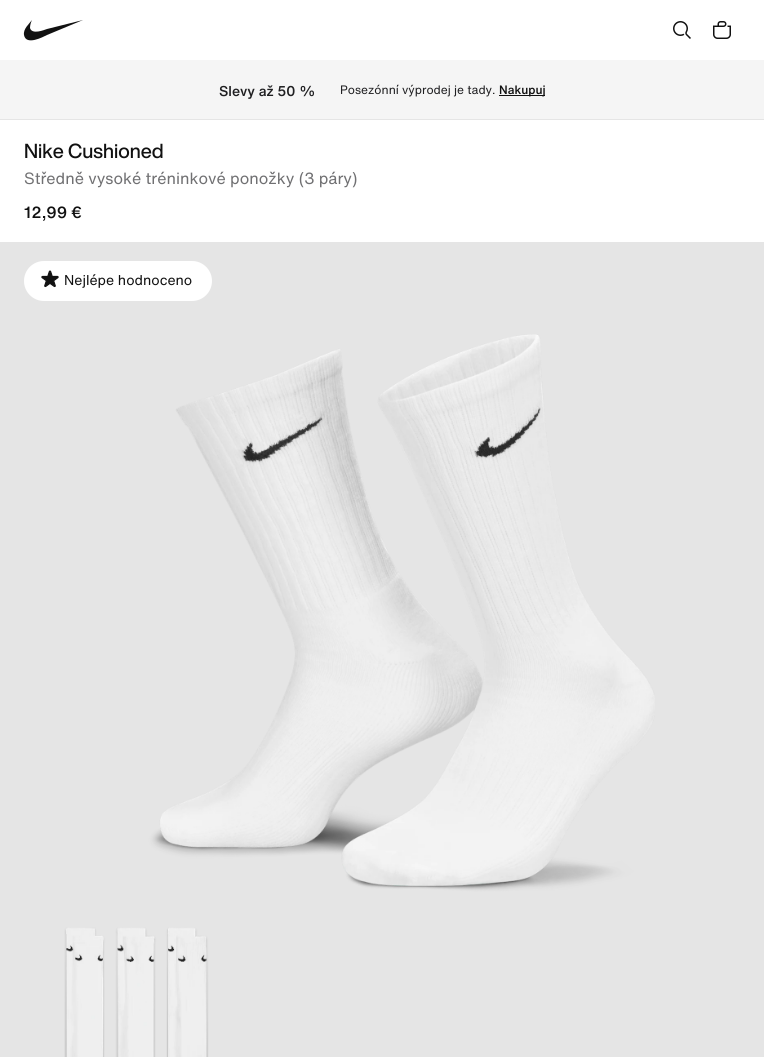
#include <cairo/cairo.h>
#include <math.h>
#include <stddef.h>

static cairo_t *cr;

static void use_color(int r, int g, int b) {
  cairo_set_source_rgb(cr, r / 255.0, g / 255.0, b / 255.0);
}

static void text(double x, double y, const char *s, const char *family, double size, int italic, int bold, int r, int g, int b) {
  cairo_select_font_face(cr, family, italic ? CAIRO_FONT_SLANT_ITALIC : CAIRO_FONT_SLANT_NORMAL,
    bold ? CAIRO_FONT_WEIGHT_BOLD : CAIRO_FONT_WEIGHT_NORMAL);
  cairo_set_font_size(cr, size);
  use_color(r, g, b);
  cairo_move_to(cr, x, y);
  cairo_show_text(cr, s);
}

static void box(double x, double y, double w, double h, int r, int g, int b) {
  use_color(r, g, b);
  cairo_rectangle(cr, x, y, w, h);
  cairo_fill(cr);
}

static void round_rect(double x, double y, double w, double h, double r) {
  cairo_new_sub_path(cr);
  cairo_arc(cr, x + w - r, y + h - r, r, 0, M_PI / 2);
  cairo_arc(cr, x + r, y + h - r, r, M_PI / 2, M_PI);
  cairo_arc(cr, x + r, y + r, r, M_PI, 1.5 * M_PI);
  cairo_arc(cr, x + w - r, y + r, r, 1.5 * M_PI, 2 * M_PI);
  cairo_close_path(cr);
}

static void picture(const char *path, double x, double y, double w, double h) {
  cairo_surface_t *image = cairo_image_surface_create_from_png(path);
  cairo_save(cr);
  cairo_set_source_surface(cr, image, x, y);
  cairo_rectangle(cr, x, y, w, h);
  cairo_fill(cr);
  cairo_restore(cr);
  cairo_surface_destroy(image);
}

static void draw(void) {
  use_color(255, 255, 255);
  cairo_paint(cr);
  use_color(17, 17, 17);
  cairo_set_fill_rule(cr, CAIRO_FILL_RULE_EVEN_ODD);
  cairo_new_path(cr);
  cairo_move_to(cr, 83, 20);
  cairo_line_to(cr, 47, 35);
  cairo_curve_to(cr, 43, 37, 26, 46, 24, 35);
  cairo_curve_to(cr, 23, 29, 29, 24, 32, 20);
  cairo_curve_to(cr, 31, 22, 30, 25, 30, 28);
  cairo_curve_to(cr, 32, 35, 44, 30, 47, 29);
  cairo_close_path(cr);
  cairo_fill(cr);
  picture("img_01.png", 673, 21, 18, 18);
  picture("img_02.png", 713, 21, 18, 18);
  box(0, 60, 764, 59, 245, 245, 245);
  box(0, 119, 764, 1, 229, 229, 229);
  box(499, 95, 46, 1, 17, 17, 17);
  box(0, 242, 764, 815, 229, 229, 229);
  picture("img_03.png", 64, 334, 591, 723);
  use_color(255, 255, 255);
  round_rect(24, 261, 188, 40, 20);
  cairo_fill(cr);
  picture("img_04.png", 41, 270, 18, 18);
  text(219, 96, "Slevy až 50 %", "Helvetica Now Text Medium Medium", 14, 0, 0, 31, 31, 33);
  text(340, 94, "Posezónní výprodej je tady.", "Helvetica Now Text", 12, 0, 0, 31, 31, 33);
  text(499, 94, "Nakupuj", "Helvetica Now Text Medium Medium", 12, 0, 0, 17, 17, 17);
  text(24, 158, "Nike Cushioned", "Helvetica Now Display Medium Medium", 20, 0, 0, 17, 17, 17);
  text(24, 184, "Středně vysoké tréninkové ponožky (3 páry)", "Helvetica Now Text", 16, 0, 0, 112, 112, 114);
  text(24, 218, "12,99 €", "Helvetica Now Text Medium Medium", 16, 0, 0, 17, 17, 17);
  text(64, 285, "Nejlépe hodnoceno", "Helvetica Now Text", 14, 0, 0, 17, 17, 17);
}

int main(void) {
  cairo_surface_t *surface = cairo_image_surface_create(CAIRO_FORMAT_RGB24, 764, 1057);
  cr = cairo_create(surface);
  cairo_font_options_t *options = cairo_font_options_create();
  cairo_font_options_set_hint_metrics(options, CAIRO_HINT_METRICS_OFF);
  cairo_font_options_set_hint_style(options, CAIRO_HINT_STYLE_NONE);
  cairo_set_font_options(cr, options);
  cairo_set_miter_limit(cr, 4);
  draw();
  cairo_surface_write_to_png(surface, "out.png");
  cairo_font_options_destroy(options);
  cairo_destroy(cr);
  cairo_surface_destroy(surface);
  return 0;
}
